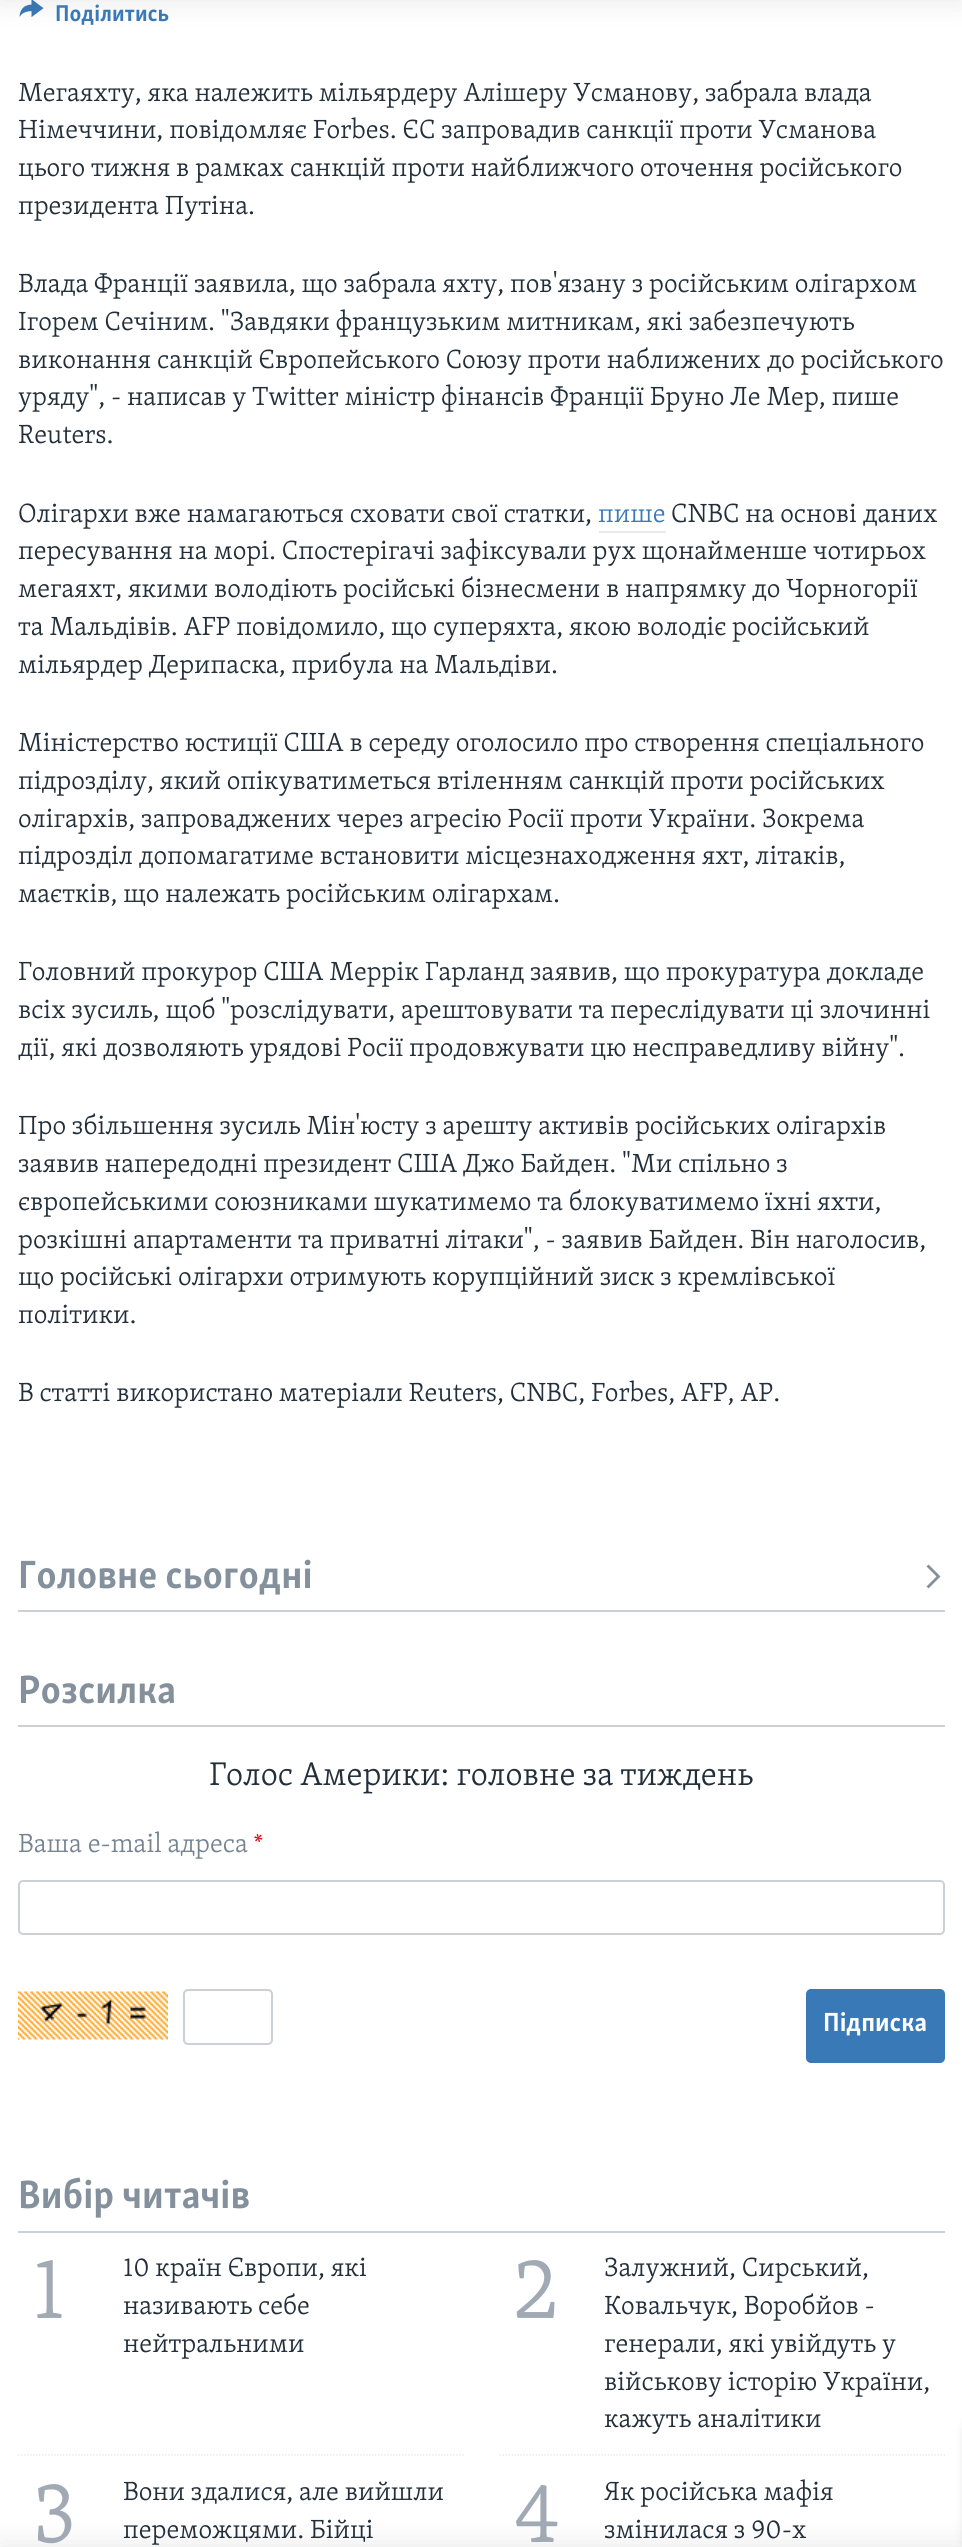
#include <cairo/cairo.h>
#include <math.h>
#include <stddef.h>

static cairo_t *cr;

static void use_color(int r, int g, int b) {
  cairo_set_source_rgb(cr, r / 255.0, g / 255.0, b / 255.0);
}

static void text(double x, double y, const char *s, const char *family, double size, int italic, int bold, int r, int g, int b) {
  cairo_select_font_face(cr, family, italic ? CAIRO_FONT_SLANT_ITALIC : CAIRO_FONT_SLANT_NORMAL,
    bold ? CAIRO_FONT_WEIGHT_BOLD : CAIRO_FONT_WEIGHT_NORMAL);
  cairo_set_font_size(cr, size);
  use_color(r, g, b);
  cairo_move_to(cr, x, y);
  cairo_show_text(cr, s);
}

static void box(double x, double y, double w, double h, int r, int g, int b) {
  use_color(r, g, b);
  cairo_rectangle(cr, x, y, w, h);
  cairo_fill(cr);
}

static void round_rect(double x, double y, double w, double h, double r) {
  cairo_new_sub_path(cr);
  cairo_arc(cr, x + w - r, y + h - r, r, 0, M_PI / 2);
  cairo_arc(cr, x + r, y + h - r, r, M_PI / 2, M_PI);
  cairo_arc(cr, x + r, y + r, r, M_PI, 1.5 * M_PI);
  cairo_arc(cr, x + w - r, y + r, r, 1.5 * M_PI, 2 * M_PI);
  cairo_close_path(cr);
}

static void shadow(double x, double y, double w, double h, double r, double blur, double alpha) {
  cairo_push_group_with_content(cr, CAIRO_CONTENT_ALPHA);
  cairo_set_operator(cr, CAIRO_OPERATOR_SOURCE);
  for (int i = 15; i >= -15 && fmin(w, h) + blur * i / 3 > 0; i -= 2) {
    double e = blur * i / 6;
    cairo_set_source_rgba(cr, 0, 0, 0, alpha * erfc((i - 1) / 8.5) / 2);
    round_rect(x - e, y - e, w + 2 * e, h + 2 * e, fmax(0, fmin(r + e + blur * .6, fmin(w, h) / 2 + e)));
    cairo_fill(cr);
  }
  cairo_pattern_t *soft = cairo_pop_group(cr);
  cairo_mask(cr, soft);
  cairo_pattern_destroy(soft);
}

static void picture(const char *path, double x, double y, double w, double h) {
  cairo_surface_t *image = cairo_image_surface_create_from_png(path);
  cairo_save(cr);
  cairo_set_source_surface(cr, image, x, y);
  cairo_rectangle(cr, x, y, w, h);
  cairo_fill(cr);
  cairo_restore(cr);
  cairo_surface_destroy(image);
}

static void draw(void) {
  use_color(255, 255, 255);
  cairo_paint(cr);
  picture("img_01.png", 19, 0, 25, 17);
  use_color(0, 0, 0);
  shadow(0, -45, 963, 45, 0, 15, 0.1);
  shadow(0, 2547, 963, 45, 0, 15, 0.1);
  box(599, 531, 67, 2, 232, 234, 236);
  box(18, 1610, 927, 2, 203, 209, 214);
  use_color(132, 145, 157);
  cairo_new_path(cr);
  cairo_move_to(cr, 928.5, 1588.5);
  cairo_line_to(cr, 940.5, 1576.5);
  cairo_line_to(cr, 928.5, 1564.5);
  cairo_line_to(cr, 926.5, 1566.5);
  cairo_line_to(cr, 936.5, 1576.5);
  cairo_line_to(cr, 926.5, 1586.5);
  cairo_close_path(cr);
  cairo_fill(cr);
  box(18, 1725, 927, 2, 203, 209, 214);
  round_rect(19, 1881, 925, 53, 4);
  cairo_stroke(cr);
  picture("img_02.png", 18, 1991, 150, 49);
  round_rect(184, 1990, 88, 54, 4);
  cairo_stroke(cr);
  use_color(58, 121, 183);
  round_rect(806, 1989, 139, 74, 5);
  cairo_fill(cr);
  box(18, 2231, 927, 2, 203, 209, 214);
  cairo_new_path(cr);
  cairo_move_to(cr, 18, 2455);
  cairo_line_to(cr, 463.5, 2455);
  use_color(232, 234, 236);
  cairo_set_line_width(cr, 1.5);
  cairo_set_dash(cr, (double[]){1.5, 1.5}, 2, 0);
  cairo_stroke(cr);
  cairo_new_path(cr);
  cairo_move_to(cr, 499.5, 2455);
  cairo_line_to(cr, 945, 2455);
  cairo_stroke(cr);
  use_color(0, 0, 0);
  shadow(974, 2426, 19, 121, 8, 7.5, 0.85);
  text(55, 21, "Поділитись", "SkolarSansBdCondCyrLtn", 23.5, 0, 1, 58, 121, 183);
  text(18, 101, "Мегаяхту, яка належить мільярдеру Алішеру Усманову, забрала влада", "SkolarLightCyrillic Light", 27, 0, 0, 34, 47, 58);
  text(18, 138, "Німеччини, повідомляє Forbes. ЄС запровадив санкції проти Усманова", "SkolarLightCyrillic Light", 27, 0, 0, 34, 47, 58);
  text(18, 176, "цього тижня в рамках санкцій проти найближчого оточення російського", "SkolarLightCyrillic Light", 27, 0, 0, 34, 47, 58);
  text(18, 214, "президента Путіна.", "SkolarLightCyrillic Light", 27, 0, 0, 34, 47, 58);
  text(18, 292, "Влада Франції заявила, що забрала яхту, пов'язану з російським олігархом", "SkolarLightCyrillic Light", 27, 0, 0, 34, 47, 58);
  text(18, 330, "Ігорем Сечіним. \"Завдяки французьким митникам, які забезпечують", "SkolarLightCyrillic Light", 27, 0, 0, 34, 47, 58);
  text(18, 368, "виконання санкцій Європейського Союзу проти наближених до російського", "SkolarLightCyrillic Light", 27, 0, 0, 34, 47, 58);
  text(18, 405, "уряду\", - написав у Twitter міністр фінансів Франції Бруно Ле Мер, пише", "SkolarLightCyrillic Light", 27, 0, 0, 34, 47, 58);
  text(18, 443, "Reuters.", "SkolarLightCyrillic Light", 27, 0, 0, 34, 47, 58);
  text(18, 522, "Олігархи вже намагаються сховати свої статки,", "SkolarLightCyrillic Light", 27, 0, 0, 34, 47, 58);
  text(598, 522, "пише", "SkolarLightCyrillic Light", 27, 0, 0, 58, 121, 183);
  text(671, 522, "CNBC на основі даних", "SkolarLightCyrillic Light", 27, 0, 0, 34, 47, 58);
  text(18, 559, "пересування на морі. Спостерігачі зафіксували рух щонайменше чотирьох", "SkolarLightCyrillic Light", 27, 0, 0, 34, 47, 58);
  text(18, 597, "мегаяхт, якими володіють російські бізнесмени в напрямку до Чорногорії", "SkolarLightCyrillic Light", 27, 0, 0, 34, 47, 58);
  text(18, 635, "та Мальдівів. AFP повідомило, що суперяхта, якою володіє російський", "SkolarLightCyrillic Light", 27, 0, 0, 34, 47, 58);
  text(18, 673, "мільярдер Дерипаска, прибула на Мальдіви.", "SkolarLightCyrillic Light", 27, 0, 0, 34, 47, 58);
  text(18, 751, "Міністерство юстиції США в середу оголосило про створення спеціального", "SkolarLightCyrillic Light", 27, 0, 0, 34, 47, 58);
  text(18, 789, "підрозділу, який опікуватиметься втіленням санкцій проти російських", "SkolarLightCyrillic Light", 27, 0, 0, 34, 47, 58);
  text(18, 827, "олігархів, запроваджених через агресію Росії проти України. Зокрема", "SkolarLightCyrillic Light", 27, 0, 0, 34, 47, 58);
  text(18, 864, "підрозділ допомагатиме встановити місцезнаходження яхт, літаків,", "SkolarLightCyrillic Light", 27, 0, 0, 34, 47, 58);
  text(18, 902, "маєтків, що належать російським олігархам.", "SkolarLightCyrillic Light", 27, 0, 0, 34, 47, 58);
  text(18, 980, "Головний прокурор США Меррік Гарланд заявив, що прокуратура докладе", "SkolarLightCyrillic Light", 27, 0, 0, 34, 47, 58);
  text(18, 1018, "всіх зусиль, щоб \"розслідувати, арештовувати та переслідувати ці злочинні", "SkolarLightCyrillic Light", 27, 0, 0, 34, 47, 58);
  text(18, 1056, "дії, які дозволяють урядові Росії продовжувати цю несправедливу війну\".", "SkolarLightCyrillic Light", 27, 0, 0, 34, 47, 58);
  text(18, 1134, "Про збільшення зусиль Мін'юсту з арешту активів російських олігархів", "SkolarLightCyrillic Light", 27, 0, 0, 34, 47, 58);
  text(18, 1172, "заявив напередодні президент США Джо Байден. \"Ми спільно з", "SkolarLightCyrillic Light", 27, 0, 0, 34, 47, 58);
  text(18, 1210, "європейськими союзниками шукатимемо та блокуватимемо їхні яхти,", "SkolarLightCyrillic Light", 27, 0, 0, 34, 47, 58);
  text(18, 1248, "розкішні апартаменти та приватні літаки\", - заявив Байден. Він наголосив,", "SkolarLightCyrillic Light", 27, 0, 0, 34, 47, 58);
  text(18, 1285, "що російські олігархи отримують корупційний зиск з кремлівської", "SkolarLightCyrillic Light", 27, 0, 0, 34, 47, 58);
  text(18, 1323, "політики.", "SkolarLightCyrillic Light", 27, 0, 0, 34, 47, 58);
  text(18, 1401, "В статті використано матеріали Reuters, CNBC, Forbes, AFP, AP.", "SkolarLightCyrillic Light", 27, 0, 0, 34, 47, 58);
  text(18, 1588, "Головне сьогодні", "SkolarSansBdCondCyrLtn", 40.5, 0, 1, 132, 145, 157);
  text(18, 1703, "Розсилка", "SkolarSansBdCondCyrLtn", 40.5, 0, 1, 132, 145, 157);
  text(209, 1785, "Голос Америки: головне за тиждень", "SkolarLightCyrillic Light", 33.75, 0, 0, 34, 47, 58);
  text(18, 1852, "Ваша e-mail адреса", "SkolarLightCyrillic Light", 27, 0, 0, 118, 132, 146);
  text(254, 1852, "*", "SkolarLightCyrillic Light", 23.5, 0, 0, 214, 1, 9);
  text(823, 2031, "Підписка", "SkolarSansBdCondCyrLtn", 27, 0, 1, 255, 255, 255);
  text(18, 2208, "Вибір читачів", "SkolarSansBdCondCyrLtn", 40.5, 0, 1, 132, 145, 157);
  text(32, 2318, "1", "SkolarLightCyrillic Light", 89, 0, 0, 161, 170, 180);
  text(123, 2276, "10 країн Європи, які", "SkolarLightCyrillic Light", 27, 0, 0, 34, 47, 58);
  text(123, 2314, "називають себе", "SkolarLightCyrillic Light", 27, 0, 0, 34, 47, 58);
  text(123, 2352, "нейтральними", "SkolarLightCyrillic Light", 27, 0, 0, 34, 47, 58);
  text(513, 2318, "2", "SkolarLightCyrillic Light", 89, 0, 0, 161, 170, 180);
  text(604, 2276, "Залужний, Сирський,", "SkolarLightCyrillic Light", 27, 0, 0, 34, 47, 58);
  text(604, 2314, "Ковальчук, Воробйов -", "SkolarLightCyrillic Light", 27, 0, 0, 34, 47, 58);
  text(604, 2352, "генерали, які увійдуть у", "SkolarLightCyrillic Light", 27, 0, 0, 34, 47, 58);
  text(604, 2390, "військову історію України,", "SkolarLightCyrillic Light", 27, 0, 0, 34, 47, 58);
  text(604, 2427, "кажуть аналітики", "SkolarLightCyrillic Light", 27, 0, 0, 34, 47, 58);
  text(32, 2542, "3", "SkolarLightCyrillic Light", 89, 0, 0, 161, 170, 180);
  text(123, 2500, "Вони здалися, але вийшли", "SkolarLightCyrillic Light", 27, 0, 0, 34, 47, 58);
  text(123, 2538, "переможцями. Бійці", "SkolarLightCyrillic Light", 27, 0, 0, 34, 47, 58);
  text(513, 2542, "4", "SkolarLightCyrillic Light", 89, 0, 0, 161, 170, 180);
  text(604, 2500, "Як російська мафія", "SkolarLightCyrillic Light", 27, 0, 0, 34, 47, 58);
  text(604, 2538, "змінилася з 90-х", "SkolarLightCyrillic Light", 27, 0, 0, 34, 47, 58);
}

int main(void) {
  cairo_surface_t *surface = cairo_image_surface_create(CAIRO_FORMAT_RGB24, 962, 2547);
  cr = cairo_create(surface);
  cairo_font_options_t *options = cairo_font_options_create();
  cairo_font_options_set_hint_metrics(options, CAIRO_HINT_METRICS_OFF);
  cairo_font_options_set_hint_style(options, CAIRO_HINT_STYLE_NONE);
  cairo_set_font_options(cr, options);
  cairo_set_miter_limit(cr, 4);
  draw();
  cairo_surface_write_to_png(surface, "out.png");
  cairo_font_options_destroy(options);
  cairo_destroy(cr);
  cairo_surface_destroy(surface);
  return 0;
}
